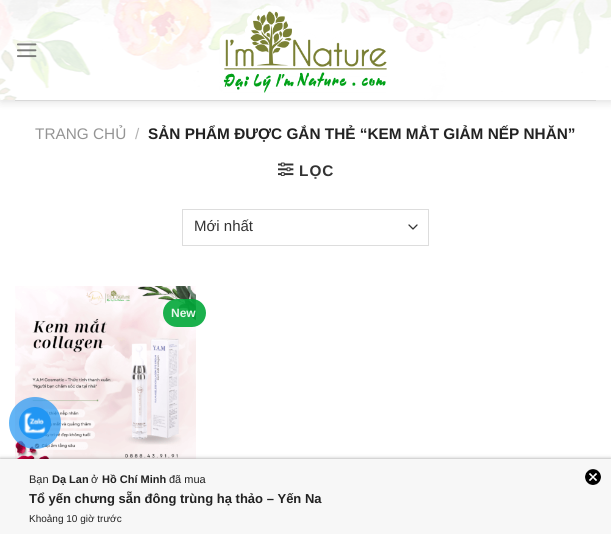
#include <cairo/cairo.h>
#include <math.h>
#include <stddef.h>

static cairo_t *cr;

static void use_color(int r, int g, int b) {
  cairo_set_source_rgb(cr, r / 255.0, g / 255.0, b / 255.0);
}

static void text(double x, double y, const char *s, const char *family, double size, int italic, int bold, int r, int g, int b) {
  cairo_select_font_face(cr, family, italic ? CAIRO_FONT_SLANT_ITALIC : CAIRO_FONT_SLANT_NORMAL,
    bold ? CAIRO_FONT_WEIGHT_BOLD : CAIRO_FONT_WEIGHT_NORMAL);
  cairo_set_font_size(cr, size);
  use_color(r, g, b);
  cairo_move_to(cr, x, y);
  cairo_show_text(cr, s);
}

static void spaced_text(double x, double y, const char *s, double letter, double word) {
  cairo_move_to(cr, x, y);
  while (*s) {
    char ch[5] = {0};
    int n = 0;
    do ch[n++] = *s++; while ((*s & 0xC0) == 0x80);
    cairo_show_text(cr, ch);
    cairo_rel_move_to(cr, letter + word * (*ch == ' '), 0);
  }
}

static void box(double x, double y, double w, double h, int r, int g, int b) {
  use_color(r, g, b);
  cairo_rectangle(cr, x, y, w, h);
  cairo_fill(cr);
}

static void round_rect(double x, double y, double w, double h, double r) {
  cairo_new_sub_path(cr);
  cairo_arc(cr, x + w - r, y + h - r, r, 0, M_PI / 2);
  cairo_arc(cr, x + r, y + h - r, r, M_PI / 2, M_PI);
  cairo_arc(cr, x + r, y + r, r, M_PI, 1.5 * M_PI);
  cairo_arc(cr, x + w - r, y + r, r, 1.5 * M_PI, 2 * M_PI);
  cairo_close_path(cr);
}

static void shadow(double x, double y, double w, double h, double r, double blur, double alpha) {
  cairo_push_group_with_content(cr, CAIRO_CONTENT_ALPHA);
  cairo_set_operator(cr, CAIRO_OPERATOR_SOURCE);
  for (int i = 15; i >= -15 && fmin(w, h) + blur * i / 3 > 0; i -= 2) {
    double e = blur * i / 6;
    cairo_set_source_rgba(cr, 0, 0, 0, alpha * erfc((i - 1) / 8.5) / 2);
    round_rect(x - e, y - e, w + 2 * e, h + 2 * e, fmax(0, fmin(r + e + blur * .6, fmin(w, h) / 2 + e)));
    cairo_fill(cr);
  }
  cairo_pattern_t *soft = cairo_pop_group(cr);
  cairo_mask(cr, soft);
  cairo_pattern_destroy(soft);
}

static void picture(const char *path, double x, double y, double w, double h) {
  cairo_surface_t *image = cairo_image_surface_create_from_png(path);
  cairo_save(cr);
  cairo_set_source_surface(cr, image, x, y);
  cairo_rectangle(cr, x, y, w, h);
  cairo_fill(cr);
  cairo_restore(cr);
  cairo_surface_destroy(image);
}

static void draw(void) {
  use_color(255, 255, 255);
  cairo_paint(cr);
  use_color(0, 0, 0);
  shadow(1, 1, 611, 100, 0, 5, 0.15);
  picture("img_01.png", 0, 0, 611, 100);
  picture("img_02.png", 17, 43, 20, 15);
  picture("img_03.png", 219, 5, 168, 88);
  box(15, 100, 581, 1, 216, 216, 216);
  picture("img_04.png", 278, 162, 16, 14);
  cairo_new_path(cr);
  cairo_move_to(cr, 409, 225);
  cairo_line_to(cr, 413, 229);
  cairo_line_to(cr, 417, 225);
  use_color(51, 51, 51);
  cairo_set_line_width(cr, 1.3);
  cairo_set_line_cap(cr, CAIRO_LINE_CAP_ROUND);
  cairo_set_line_join(cr, CAIRO_LINE_JOIN_ROUND);
  cairo_stroke(cr);
  cairo_rectangle(cr, 182.5, 209.5, 246, 36);
  use_color(221, 221, 221);
  cairo_set_line_width(cr, 1);
  cairo_set_line_cap(cr, CAIRO_LINE_CAP_BUTT);
  cairo_set_line_join(cr, CAIRO_LINE_JOIN_MITER);
  cairo_stroke(cr);
  picture("img_05.png", 15, 286, 181, 173);
  cairo_set_source_rgba(cr, 0.012, 0.663, 0.227, 0.9);
  round_rect(163, 299, 43, 28, 14);
  cairo_fill(cr);
  cairo_set_source_rgba(cr, 0.129, 0.588, 0.953, 0.7);
  cairo_arc(cr, 35, 423, 26, 0, 2 * M_PI);
  cairo_fill(cr);
  use_color(33, 150, 243);
  cairo_arc(cr, 35, 423, 16, 0, 2 * M_PI);
  cairo_fill(cr);
  picture("img_06.png", 23, 412, 23, 22);
  use_color(0, 0, 0);
  shadow(0, 459, 611, 75, 0, 2, 0.4);
  box(0, 459, 611, 75, 247, 247, 247);
  picture("img_07.png", 585, 469, 16, 16);
  text(35, 139, "TRANG CHỦ", "Liberation Sans", 15.35, 0, 0, 148, 148, 148);
  text(135, 139, "/", "Liberation Sans", 15.35, 0, 0, 178, 178, 178);
  text(148, 139, "SẢN PHẨM ĐƯỢC GẮN THẺ “KEM MẮT GIẢM NẾP NHĂN”", "Liberation Sans", 15.35, 0, 1, 34, 34, 34);
  use_color(51, 51, 51);
  spaced_text(299, 176, "LỌC", 1, 0);
  text(194, 231, "Mới nhất", "Liberation Sans", 15, 0, 0, 51, 51, 51);
  text(171, 317, "New", "Liberation Sans", 12, 0, 1, 232, 247, 237);
  text(29, 483, "Bạn", "Liberation Sans", 11, 0, 0, 34, 34, 34);
  text(52, 483, "Dạ Lan", "Liberation Sans", 11, 0, 1, 34, 34, 34);
  text(91, 483, "ở", "Liberation Sans", 11, 0, 0, 34, 34, 34);
  text(102, 483, "Hồ Chí Minh", "Liberation Sans", 11, 0, 1, 34, 34, 34);
  text(169, 483, "đã mua", "Liberation Sans", 11, 0, 0, 34, 34, 34);
  text(29, 503, "Tổ yến chưng sẵn đông trùng hạ thảo – Yến Na", "Liberation Sans", 13, 0, 1, 34, 34, 34);
  text(29, 522, "Khoảng 10 giờ trước", "Liberation Sans", 10, 0, 0, 34, 34, 34);
}

int main(void) {
  cairo_surface_t *surface = cairo_image_surface_create(CAIRO_FORMAT_RGB24, 611, 534);
  cr = cairo_create(surface);
  cairo_font_options_t *options = cairo_font_options_create();
  cairo_font_options_set_hint_metrics(options, CAIRO_HINT_METRICS_OFF);
  cairo_font_options_set_hint_style(options, CAIRO_HINT_STYLE_NONE);
  cairo_set_font_options(cr, options);
  cairo_set_miter_limit(cr, 4);
  draw();
  cairo_surface_write_to_png(surface, "out.png");
  cairo_font_options_destroy(options);
  cairo_destroy(cr);
  cairo_surface_destroy(surface);
  return 0;
}
